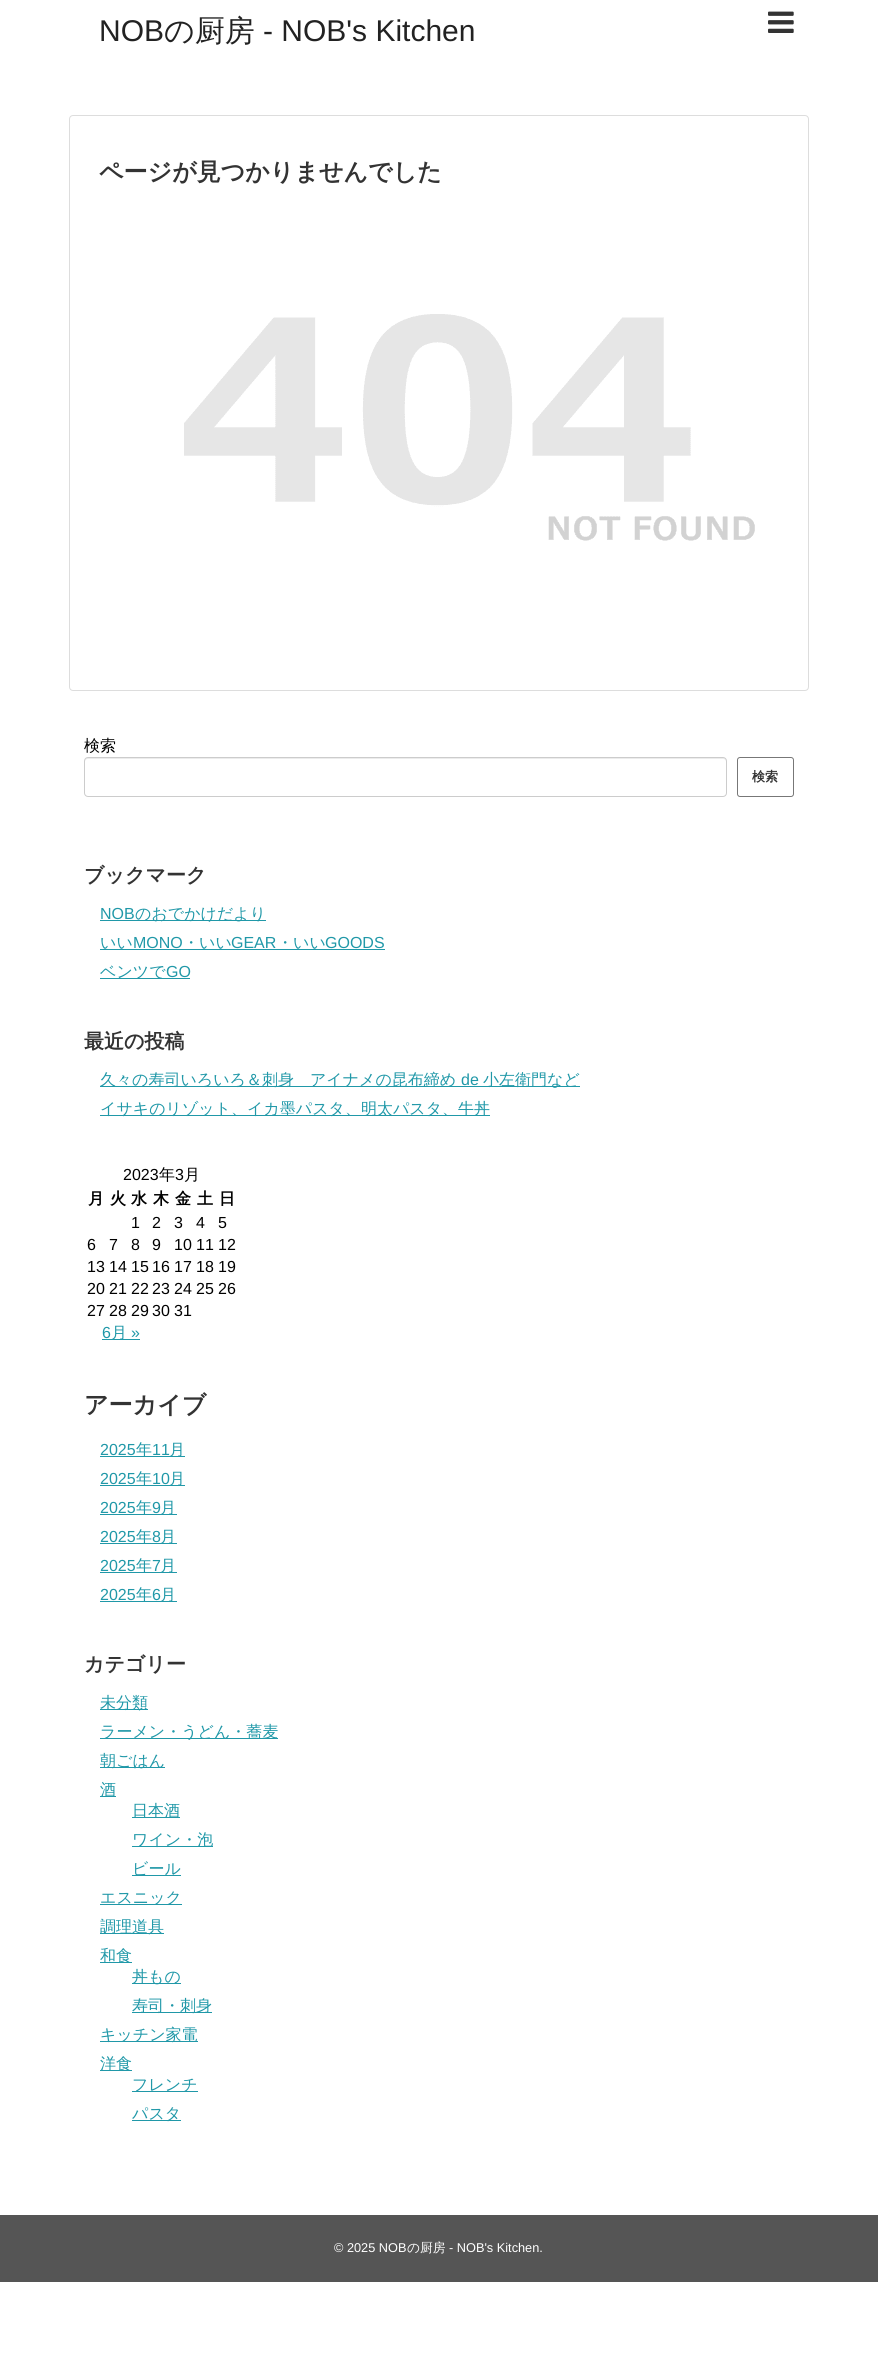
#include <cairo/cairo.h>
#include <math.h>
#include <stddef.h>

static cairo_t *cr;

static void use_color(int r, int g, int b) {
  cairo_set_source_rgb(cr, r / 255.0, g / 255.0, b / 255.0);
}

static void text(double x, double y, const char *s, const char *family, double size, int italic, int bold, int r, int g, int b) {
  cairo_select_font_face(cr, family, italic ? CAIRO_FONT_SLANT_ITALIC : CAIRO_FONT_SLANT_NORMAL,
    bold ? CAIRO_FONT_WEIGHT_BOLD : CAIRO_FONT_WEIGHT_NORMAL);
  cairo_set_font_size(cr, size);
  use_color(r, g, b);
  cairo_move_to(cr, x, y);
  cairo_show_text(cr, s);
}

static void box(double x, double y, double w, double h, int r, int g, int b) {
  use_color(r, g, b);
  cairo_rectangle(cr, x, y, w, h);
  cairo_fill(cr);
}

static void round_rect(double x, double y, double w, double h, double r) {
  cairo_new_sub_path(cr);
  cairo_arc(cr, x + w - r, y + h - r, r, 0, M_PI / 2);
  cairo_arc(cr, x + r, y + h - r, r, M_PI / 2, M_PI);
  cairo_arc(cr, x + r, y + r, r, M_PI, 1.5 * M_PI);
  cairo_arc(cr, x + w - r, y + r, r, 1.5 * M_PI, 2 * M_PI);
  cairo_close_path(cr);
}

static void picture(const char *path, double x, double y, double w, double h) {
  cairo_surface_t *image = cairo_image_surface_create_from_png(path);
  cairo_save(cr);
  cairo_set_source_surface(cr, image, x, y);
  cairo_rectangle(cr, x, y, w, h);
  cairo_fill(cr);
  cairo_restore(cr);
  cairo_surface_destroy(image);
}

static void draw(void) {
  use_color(255, 255, 255);
  cairo_paint(cr);
  picture("img_01.png", 768, 11, 26, 22);
  round_rect(69.5, 115.5, 739, 575, 3.5);
  use_color(221, 221, 221);
  cairo_set_line_width(cr, 1);
  cairo_stroke(cr);
  picture("img_02.png", 184, 314, 571, 227);
  use_color(236, 236, 236);
  cairo_new_path(cr);
  cairo_move_to(cr, 88, 759);
  cairo_line_to(cr, 723, 759);
  cairo_curve_to(cr, 725, 759, 726, 760, 726, 762);
  cairo_line_to(cr, 726, 761);
  cairo_curve_to(cr, 726, 759, 725, 758, 723, 758);
  cairo_line_to(cr, 88, 758);
  cairo_curve_to(cr, 86, 758, 85, 759, 85, 761);
  cairo_line_to(cr, 85, 762);
  cairo_curve_to(cr, 85, 760, 86, 759, 88, 759);
  cairo_close_path(cr);
  cairo_fill(cr);
  round_rect(84.5, 757.5, 642, 39, 3.5);
  use_color(204, 204, 204);
  cairo_stroke(cr);
  round_rect(737.5, 757.5, 56, 39, 2.5);
  use_color(119, 119, 119);
  cairo_stroke(cr);
  box(100, 920, 166, 1, 32, 152, 168);
  box(100, 949, 285, 1, 32, 152, 168);
  box(100, 978, 90, 1, 32, 152, 168);
  box(100, 1086, 480, 1, 32, 152, 168);
  box(100, 1115, 390, 1, 32, 152, 168);
  box(102, 1339, 38, 1, 32, 152, 168);
  box(100, 1456, 85, 1, 32, 152, 168);
  box(100, 1485, 85, 1, 32, 152, 168);
  box(100, 1514, 77, 1, 32, 152, 168);
  box(100, 1543, 77, 1, 32, 152, 168);
  box(100, 1572, 77, 1, 32, 152, 168);
  box(100, 1601, 77, 1, 32, 152, 168);
  box(100, 1709, 48, 1, 32, 152, 168);
  box(100, 1738, 178, 1, 32, 152, 168);
  box(100, 1767, 65, 1, 32, 152, 168);
  box(100, 1796, 16, 1, 32, 152, 168);
  box(132, 1817, 48, 1, 32, 152, 168);
  box(132, 1846, 81, 1, 32, 152, 168);
  box(132, 1875, 49, 1, 32, 152, 168);
  box(100, 1904, 82, 1, 32, 152, 168);
  box(100, 1933, 64, 1, 32, 152, 168);
  box(100, 1962, 32, 1, 32, 152, 168);
  box(132, 1983, 49, 1, 32, 152, 168);
  box(132, 2012, 80, 1, 32, 152, 168);
  box(100, 2041, 98, 1, 32, 152, 168);
  box(100, 2070, 32, 1, 32, 152, 168);
  box(132, 2091, 66, 1, 32, 152, 168);
  box(132, 2120, 49, 1, 32, 152, 168);
  box(0, 2215, 878, 67, 85, 85, 85);
  text(99, 41, "NOB", "Liberation Sans", 30, 0, 0, 34, 34, 34);
  text(164, 41, "の厨房", "WenQuanYi Zen Hei Medium", 30, 0, 0, 34, 34, 34);
  text(263, 41, "- NOB's Kitchen", "Liberation Sans", 30, 0, 0, 34, 34, 34);
  text(99, 180, "ページが見つかりませんでした", "WenQuanYi Zen Hei", 24, 0, 1, 51, 51, 51);
  text(84, 751, "検索", "WenQuanYi Zen Hei Medium", 16, 0, 0, 0, 0, 0);
  text(752, 781, "検索", "WenQuanYi Zen Hei", 13, 0, 1, 51, 51, 51);
  text(84, 882, "ブックマーク", "WenQuanYi Zen Hei", 20, 0, 1, 51, 51, 51);
  text(100, 919, "NOB", "Liberation Sans", 16, 0, 0, 32, 152, 168);
  text(135, 919, "のおでかけだより", "WenQuanYi Zen Hei Medium", 16, 0, 0, 32, 152, 168);
  text(100, 948, "いい", "WenQuanYi Zen Hei Medium", 16, 0, 0, 32, 152, 168);
  text(133, 948, "MONO", "Liberation Sans", 16, 0, 0, 32, 152, 168);
  text(183, 948, "・いい", "WenQuanYi Zen Hei Medium", 16, 0, 0, 32, 152, 168);
  text(231, 948, "GEAR", "Liberation Sans", 16, 0, 0, 32, 152, 168);
  text(277, 948, "・いい", "WenQuanYi Zen Hei Medium", 16, 0, 0, 32, 152, 168);
  text(325, 948, "GOODS", "Liberation Sans", 16, 0, 0, 32, 152, 168);
  text(100, 977, "ベンツで", "WenQuanYi Zen Hei Medium", 16, 0, 0, 32, 152, 168);
  text(166, 977, "GO", "Liberation Sans", 16, 0, 0, 32, 152, 168);
  text(84, 1048, "最近の投稿", "WenQuanYi Zen Hei", 20, 0, 1, 51, 51, 51);
  text(100, 1085, "久々の寿司いろいろ＆刺身　アイナメの昆布締め", "WenQuanYi Zen Hei Medium", 16, 0, 0, 32, 152, 168);
  text(461, 1085, "de", "Liberation Sans", 16, 0, 0, 32, 152, 168);
  text(483, 1085, "小左衛門など", "WenQuanYi Zen Hei Medium", 16, 0, 0, 32, 152, 168);
  text(100, 1114, "イサキのリゾット、イカ墨パスタ、明太パスタ、牛丼", "WenQuanYi Zen Hei Medium", 16, 0, 0, 32, 152, 168);
  text(123, 1180, "2023", "Liberation Sans", 16, 0, 0, 0, 0, 0);
  text(159, 1180, "年", "WenQuanYi Zen Hei Medium", 16, 0, 0, 0, 0, 0);
  text(175, 1180, "3", "Liberation Sans", 16, 0, 0, 0, 0, 0);
  text(184, 1180, "月", "WenQuanYi Zen Hei Medium", 16, 0, 0, 0, 0, 0);
  text(88, 1204, "月", "WenQuanYi Zen Hei", 16, 0, 1, 0, 0, 0);
  text(110, 1204, "火", "WenQuanYi Zen Hei", 16, 0, 1, 0, 0, 0);
  text(131, 1204, "水", "WenQuanYi Zen Hei", 16, 0, 1, 0, 0, 0);
  text(153, 1204, "木", "WenQuanYi Zen Hei", 16, 0, 1, 0, 0, 0);
  text(175, 1204, "金", "WenQuanYi Zen Hei", 16, 0, 1, 0, 0, 0);
  text(197, 1204, "土", "WenQuanYi Zen Hei", 16, 0, 1, 0, 0, 0);
  text(219, 1204, "日", "WenQuanYi Zen Hei", 16, 0, 1, 0, 0, 0);
  text(131, 1228, "1", "Liberation Sans", 16, 0, 0, 0, 0, 0);
  text(152, 1228, "2", "Liberation Sans", 16, 0, 0, 0, 0, 0);
  text(174, 1228, "3", "Liberation Sans", 16, 0, 0, 0, 0, 0);
  text(196, 1228, "4", "Liberation Sans", 16, 0, 0, 0, 0, 0);
  text(218, 1228, "5", "Liberation Sans", 16, 0, 0, 0, 0, 0);
  text(87, 1250, "6", "Liberation Sans", 16, 0, 0, 0, 0, 0);
  text(109, 1250, "7", "Liberation Sans", 16, 0, 0, 0, 0, 0);
  text(131, 1250, "8", "Liberation Sans", 16, 0, 0, 0, 0, 0);
  text(152, 1250, "9", "Liberation Sans", 16, 0, 0, 0, 0, 0);
  text(174, 1250, "10", "Liberation Sans", 16, 0, 0, 0, 0, 0);
  text(196, 1250, "11", "Liberation Sans", 16, 0, 0, 0, 0, 0);
  text(218, 1250, "12", "Liberation Sans", 16, 0, 0, 0, 0, 0);
  text(87, 1272, "13", "Liberation Sans", 16, 0, 0, 0, 0, 0);
  text(109, 1272, "14", "Liberation Sans", 16, 0, 0, 0, 0, 0);
  text(131, 1272, "15", "Liberation Sans", 16, 0, 0, 0, 0, 0);
  text(152, 1272, "16", "Liberation Sans", 16, 0, 0, 0, 0, 0);
  text(174, 1272, "17", "Liberation Sans", 16, 0, 0, 0, 0, 0);
  text(196, 1272, "18", "Liberation Sans", 16, 0, 0, 0, 0, 0);
  text(218, 1272, "19", "Liberation Sans", 16, 0, 0, 0, 0, 0);
  text(87, 1294, "20", "Liberation Sans", 16, 0, 0, 0, 0, 0);
  text(109, 1294, "21", "Liberation Sans", 16, 0, 0, 0, 0, 0);
  text(131, 1294, "22", "Liberation Sans", 16, 0, 0, 0, 0, 0);
  text(152, 1294, "23", "Liberation Sans", 16, 0, 0, 0, 0, 0);
  text(174, 1294, "24", "Liberation Sans", 16, 0, 0, 0, 0, 0);
  text(196, 1294, "25", "Liberation Sans", 16, 0, 0, 0, 0, 0);
  text(218, 1294, "26", "Liberation Sans", 16, 0, 0, 0, 0, 0);
  text(87, 1316, "27", "Liberation Sans", 16, 0, 0, 0, 0, 0);
  text(109, 1316, "28", "Liberation Sans", 16, 0, 0, 0, 0, 0);
  text(131, 1316, "29", "Liberation Sans", 16, 0, 0, 0, 0, 0);
  text(152, 1316, "30", "Liberation Sans", 16, 0, 0, 0, 0, 0);
  text(174, 1316, "31", "Liberation Sans", 16, 0, 0, 0, 0, 0);
  text(102, 1338, "6", "Liberation Sans", 16, 0, 0, 32, 152, 168);
  text(111, 1338, "月", "WenQuanYi Zen Hei Medium", 16, 0, 0, 32, 152, 168);
  text(131, 1338, "»", "Liberation Sans", 16, 0, 0, 32, 152, 168);
  text(84, 1413, "アーカイブ", "WenQuanYi Zen Hei", 24, 0, 1, 51, 51, 51);
  text(100, 1455, "2025", "Liberation Sans", 16, 0, 0, 32, 152, 168);
  text(136, 1455, "年", "WenQuanYi Zen Hei Medium", 16, 0, 0, 32, 152, 168);
  text(152, 1455, "11", "Liberation Sans", 16, 0, 0, 32, 152, 168);
  text(169, 1455, "月", "WenQuanYi Zen Hei Medium", 16, 0, 0, 32, 152, 168);
  text(100, 1484, "2025", "Liberation Sans", 16, 0, 0, 32, 152, 168);
  text(136, 1484, "年", "WenQuanYi Zen Hei Medium", 16, 0, 0, 32, 152, 168);
  text(152, 1484, "10", "Liberation Sans", 16, 0, 0, 32, 152, 168);
  text(169, 1484, "月", "WenQuanYi Zen Hei Medium", 16, 0, 0, 32, 152, 168);
  text(100, 1513, "2025", "Liberation Sans", 16, 0, 0, 32, 152, 168);
  text(136, 1513, "年", "WenQuanYi Zen Hei Medium", 16, 0, 0, 32, 152, 168);
  text(152, 1513, "9", "Liberation Sans", 16, 0, 0, 32, 152, 168);
  text(160, 1513, "月", "WenQuanYi Zen Hei Medium", 16, 0, 0, 32, 152, 168);
  text(100, 1542, "2025", "Liberation Sans", 16, 0, 0, 32, 152, 168);
  text(136, 1542, "年", "WenQuanYi Zen Hei Medium", 16, 0, 0, 32, 152, 168);
  text(152, 1542, "8", "Liberation Sans", 16, 0, 0, 32, 152, 168);
  text(160, 1542, "月", "WenQuanYi Zen Hei Medium", 16, 0, 0, 32, 152, 168);
  text(100, 1571, "2025", "Liberation Sans", 16, 0, 0, 32, 152, 168);
  text(136, 1571, "年", "WenQuanYi Zen Hei Medium", 16, 0, 0, 32, 152, 168);
  text(152, 1571, "7", "Liberation Sans", 16, 0, 0, 32, 152, 168);
  text(160, 1571, "月", "WenQuanYi Zen Hei Medium", 16, 0, 0, 32, 152, 168);
  text(100, 1600, "2025", "Liberation Sans", 16, 0, 0, 32, 152, 168);
  text(136, 1600, "年", "WenQuanYi Zen Hei Medium", 16, 0, 0, 32, 152, 168);
  text(152, 1600, "6", "Liberation Sans", 16, 0, 0, 32, 152, 168);
  text(160, 1600, "月", "WenQuanYi Zen Hei Medium", 16, 0, 0, 32, 152, 168);
  text(84, 1671, "カテゴリー", "WenQuanYi Zen Hei", 20, 0, 1, 51, 51, 51);
  text(100, 1708, "未分類", "WenQuanYi Zen Hei Medium", 16, 0, 0, 32, 152, 168);
  text(100, 1737, "ラーメン・うどん・蕎麦", "WenQuanYi Zen Hei Medium", 16, 0, 0, 32, 152, 168);
  text(100, 1766, "朝ごはん", "WenQuanYi Zen Hei Medium", 16, 0, 0, 32, 152, 168);
  text(100, 1795, "酒", "WenQuanYi Zen Hei Medium", 16, 0, 0, 32, 152, 168);
  text(132, 1816, "日本酒", "WenQuanYi Zen Hei Medium", 16, 0, 0, 32, 152, 168);
  text(132, 1845, "ワイン・泡", "WenQuanYi Zen Hei Medium", 16, 0, 0, 32, 152, 168);
  text(132, 1874, "ビール", "WenQuanYi Zen Hei Medium", 16, 0, 0, 32, 152, 168);
  text(100, 1903, "エスニック", "WenQuanYi Zen Hei Medium", 16, 0, 0, 32, 152, 168);
  text(100, 1932, "調理道具", "WenQuanYi Zen Hei Medium", 16, 0, 0, 32, 152, 168);
  text(100, 1961, "和食", "WenQuanYi Zen Hei Medium", 16, 0, 0, 32, 152, 168);
  text(132, 1982, "丼もの", "WenQuanYi Zen Hei Medium", 16, 0, 0, 32, 152, 168);
  text(132, 2011, "寿司・刺身", "WenQuanYi Zen Hei Medium", 16, 0, 0, 32, 152, 168);
  text(100, 2040, "キッチン家電", "WenQuanYi Zen Hei Medium", 16, 0, 0, 32, 152, 168);
  text(100, 2069, "洋食", "WenQuanYi Zen Hei Medium", 16, 0, 0, 32, 152, 168);
  text(132, 2090, "フレンチ", "WenQuanYi Zen Hei Medium", 16, 0, 0, 32, 152, 168);
  text(132, 2119, "パスタ", "WenQuanYi Zen Hei Medium", 16, 0, 0, 32, 152, 168);
  text(334, 2252, "© 2025 NOB", "Liberation Sans", 12.75, 0, 0, 255, 255, 255);
  text(407, 2252, "の厨房", "WenQuanYi Zen Hei Medium", 12.75, 0, 0, 255, 255, 255);
  text(449, 2252, "- NOB's Kitchen.", "Liberation Sans", 12.75, 0, 0, 255, 255, 255);
}

int main(void) {
  cairo_surface_t *surface = cairo_image_surface_create(CAIRO_FORMAT_RGB24, 878, 2369);
  cr = cairo_create(surface);
  cairo_font_options_t *options = cairo_font_options_create();
  cairo_font_options_set_hint_metrics(options, CAIRO_HINT_METRICS_OFF);
  cairo_font_options_set_hint_style(options, CAIRO_HINT_STYLE_NONE);
  cairo_set_font_options(cr, options);
  cairo_set_miter_limit(cr, 4);
  draw();
  cairo_surface_write_to_png(surface, "out.png");
  cairo_font_options_destroy(options);
  cairo_destroy(cr);
  cairo_surface_destroy(surface);
  return 0;
}
